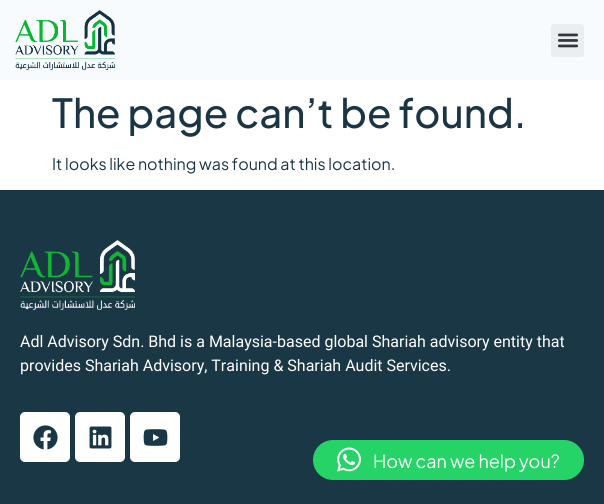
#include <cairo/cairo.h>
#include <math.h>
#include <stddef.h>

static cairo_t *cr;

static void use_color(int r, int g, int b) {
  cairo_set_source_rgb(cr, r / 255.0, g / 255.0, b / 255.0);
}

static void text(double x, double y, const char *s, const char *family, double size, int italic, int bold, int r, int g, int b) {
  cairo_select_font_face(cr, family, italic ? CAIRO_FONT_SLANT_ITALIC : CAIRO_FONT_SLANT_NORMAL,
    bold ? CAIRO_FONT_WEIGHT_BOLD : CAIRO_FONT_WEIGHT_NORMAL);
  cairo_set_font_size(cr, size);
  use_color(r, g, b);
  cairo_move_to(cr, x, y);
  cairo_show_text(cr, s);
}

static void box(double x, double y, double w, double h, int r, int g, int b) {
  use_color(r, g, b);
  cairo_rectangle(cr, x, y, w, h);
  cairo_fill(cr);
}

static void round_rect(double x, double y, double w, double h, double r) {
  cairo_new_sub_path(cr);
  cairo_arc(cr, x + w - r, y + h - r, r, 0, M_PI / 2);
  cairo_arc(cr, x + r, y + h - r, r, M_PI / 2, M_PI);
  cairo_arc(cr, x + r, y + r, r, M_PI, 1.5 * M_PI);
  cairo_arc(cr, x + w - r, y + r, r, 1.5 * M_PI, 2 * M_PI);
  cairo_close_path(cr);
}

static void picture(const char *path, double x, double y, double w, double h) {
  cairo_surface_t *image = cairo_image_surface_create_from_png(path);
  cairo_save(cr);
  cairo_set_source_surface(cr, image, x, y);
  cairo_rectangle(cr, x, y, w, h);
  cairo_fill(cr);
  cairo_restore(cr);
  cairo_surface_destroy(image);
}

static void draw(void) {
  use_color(255, 255, 255);
  cairo_paint(cr);
  box(0, 0, 604, 80, 247, 251, 254);
  picture("img_01.png", 15, 10, 100, 60);
  use_color(235, 238, 241);
  round_rect(551, 24, 33, 33, 3);
  cairo_fill(cr);
  picture("img_02.png", 557, 33, 22, 15);
  box(0, 190, 604, 314, 26, 55, 69);
  picture("img_03.png", 20, 240, 115, 70);
  use_color(255, 255, 255);
  round_rect(20, 412, 50, 50, 5);
  cairo_fill(cr);
  picture("img_04.png", 33, 425, 25, 25);
  round_rect(75, 412, 50, 50, 5);
  cairo_fill(cr);
  picture("img_05.png", 89, 426, 23, 23);
  round_rect(130, 412, 50, 50, 5);
  cairo_fill(cr);
  picture("img_06.png", 143, 429, 25, 17);
  use_color(37, 211, 102);
  round_rect(313, 440, 271, 40, 20);
  cairo_fill(cr);
  picture("img_07.png", 337, 447, 24, 25);
  text(52, 128, "The page can’t be found.", "Plus Jakarta Sans Medium", 40, 0, 0, 26, 54, 69);
  text(52, 170, "It looks like nothing was found at this location.", "Plus Jakarta Sans", 16, 0, 0, 26, 54, 69);
  text(20, 347, "Adl Advisory Sdn. Bhd is a Malaysia-based global Shariah advisory entity that", "Roboto", 16, 0, 0, 255, 255, 255);
  text(20, 371, "provides Shariah Advisory, Training & Shariah Audit Services.", "Roboto", 16, 0, 0, 255, 255, 255);
  text(373, 468, "How can we help you?", "Plus Jakarta Sans", 18, 0, 0, 255, 255, 255);
}

int main(void) {
  cairo_surface_t *surface = cairo_image_surface_create(CAIRO_FORMAT_RGB24, 604, 504);
  cr = cairo_create(surface);
  cairo_font_options_t *options = cairo_font_options_create();
  cairo_font_options_set_hint_metrics(options, CAIRO_HINT_METRICS_OFF);
  cairo_font_options_set_hint_style(options, CAIRO_HINT_STYLE_NONE);
  cairo_set_font_options(cr, options);
  cairo_set_miter_limit(cr, 4);
  draw();
  cairo_surface_write_to_png(surface, "out.png");
  cairo_font_options_destroy(options);
  cairo_destroy(cr);
  cairo_surface_destroy(surface);
  return 0;
}
